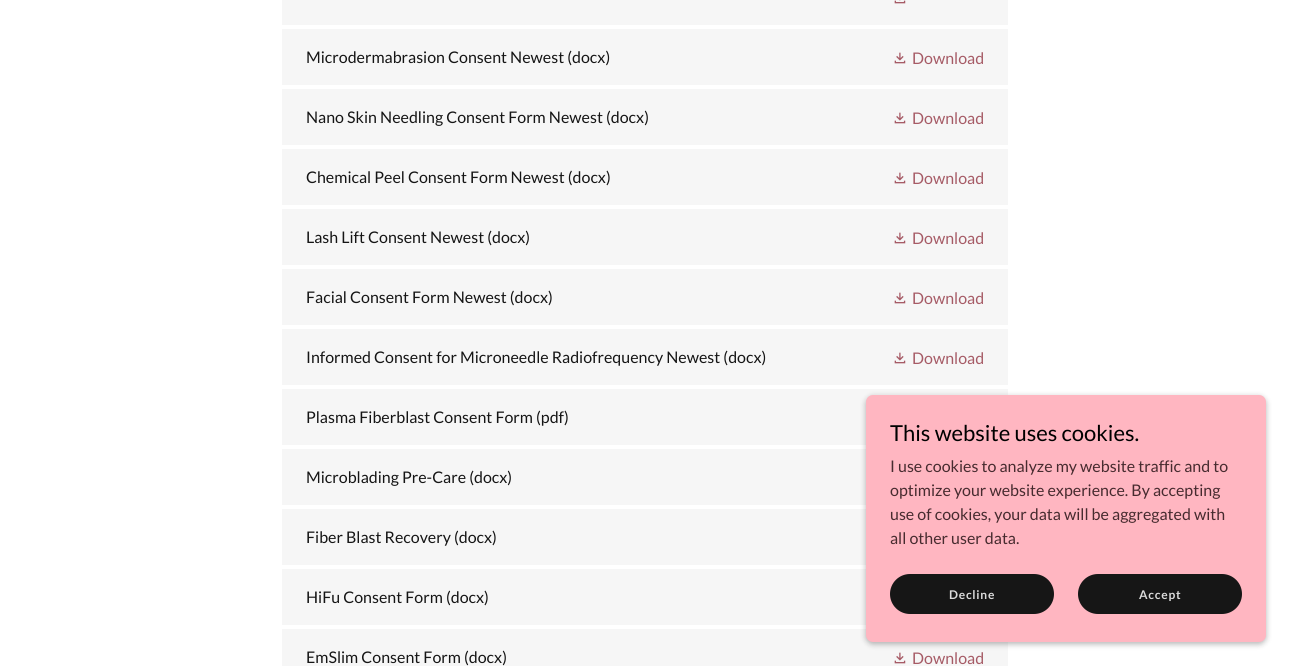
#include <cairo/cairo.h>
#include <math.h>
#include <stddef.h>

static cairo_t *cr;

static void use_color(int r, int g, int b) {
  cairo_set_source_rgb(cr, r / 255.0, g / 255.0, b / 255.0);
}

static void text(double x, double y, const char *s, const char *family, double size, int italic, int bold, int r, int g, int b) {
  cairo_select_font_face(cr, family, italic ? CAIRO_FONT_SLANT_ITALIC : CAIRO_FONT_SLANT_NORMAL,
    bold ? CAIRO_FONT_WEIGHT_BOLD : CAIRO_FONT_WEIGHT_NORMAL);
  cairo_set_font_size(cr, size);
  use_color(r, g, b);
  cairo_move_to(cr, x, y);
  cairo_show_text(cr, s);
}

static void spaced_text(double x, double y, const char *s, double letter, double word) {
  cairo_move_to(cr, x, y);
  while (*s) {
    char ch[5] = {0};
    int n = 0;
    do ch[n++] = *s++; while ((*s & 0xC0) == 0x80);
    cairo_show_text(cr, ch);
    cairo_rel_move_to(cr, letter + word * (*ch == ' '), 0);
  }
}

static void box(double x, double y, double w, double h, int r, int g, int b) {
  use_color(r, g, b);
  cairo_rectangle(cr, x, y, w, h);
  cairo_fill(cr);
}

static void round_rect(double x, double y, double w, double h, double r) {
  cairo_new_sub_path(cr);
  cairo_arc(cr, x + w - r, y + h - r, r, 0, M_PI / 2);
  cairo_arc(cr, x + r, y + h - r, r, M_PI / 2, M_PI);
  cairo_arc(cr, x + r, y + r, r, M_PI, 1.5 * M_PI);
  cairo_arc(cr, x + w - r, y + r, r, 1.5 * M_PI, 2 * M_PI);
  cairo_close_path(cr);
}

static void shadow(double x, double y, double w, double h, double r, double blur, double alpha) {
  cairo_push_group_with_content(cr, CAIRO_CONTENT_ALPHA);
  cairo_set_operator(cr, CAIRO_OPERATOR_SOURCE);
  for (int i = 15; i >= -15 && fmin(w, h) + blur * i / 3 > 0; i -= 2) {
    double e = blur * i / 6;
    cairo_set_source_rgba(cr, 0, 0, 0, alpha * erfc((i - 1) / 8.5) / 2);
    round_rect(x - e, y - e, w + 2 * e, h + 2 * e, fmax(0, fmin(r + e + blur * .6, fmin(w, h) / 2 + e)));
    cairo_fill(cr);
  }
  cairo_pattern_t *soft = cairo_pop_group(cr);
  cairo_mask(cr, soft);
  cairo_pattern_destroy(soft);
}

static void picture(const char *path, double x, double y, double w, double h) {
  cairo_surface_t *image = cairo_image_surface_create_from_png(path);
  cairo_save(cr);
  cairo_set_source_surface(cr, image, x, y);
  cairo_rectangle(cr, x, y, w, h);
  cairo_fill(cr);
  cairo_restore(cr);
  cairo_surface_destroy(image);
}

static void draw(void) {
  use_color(255, 255, 255);
  cairo_paint(cr);
  box(282, 0, 726, 25, 246, 246, 246);
  picture("img_01.png", 894, 0, 12, 4);
  box(282, 29, 726, 56, 246, 246, 246);
  picture("img_02.png", 894, 52, 12, 12);
  box(282, 89, 726, 56, 246, 246, 246);
  picture("img_02.png", 894, 112, 12, 12);
  box(282, 149, 726, 56, 246, 246, 246);
  picture("img_02.png", 894, 172, 12, 12);
  box(282, 209, 726, 56, 246, 246, 246);
  picture("img_02.png", 894, 232, 12, 12);
  box(282, 269, 726, 56, 246, 246, 246);
  picture("img_02.png", 894, 292, 12, 12);
  box(282, 329, 726, 56, 246, 246, 246);
  picture("img_02.png", 894, 352, 12, 12);
  box(282, 389, 726, 56, 246, 246, 246);
  box(282, 449, 584, 56, 246, 246, 246);
  box(282, 509, 584, 56, 246, 246, 246);
  box(282, 569, 584, 56, 246, 246, 246);
  box(282, 629, 726, 37, 246, 246, 246);
  picture("img_02.png", 894, 652, 12, 12);
  use_color(0, 0, 0);
  shadow(866, 397, 400, 247, 7, 3, 0.3);
  use_color(255, 182, 193);
  round_rect(866, 395, 400, 247, 7);
  cairo_fill(cr);
  use_color(22, 22, 22);
  round_rect(890, 574, 164, 40, 20);
  cairo_fill(cr);
  round_rect(1078, 574, 164, 40, 20);
  cairo_fill(cr);
  text(306, 63, "Microdermabrasion Consent Newest (docx)", "Lato", 16, 0, 0, 21, 21, 21);
  text(912, 64, "Download", "Lato", 16, 0, 0, 166, 91, 102);
  text(306, 123, "Nano Skin Needling Consent Form Newest (docx)", "Lato", 16, 0, 0, 21, 21, 21);
  text(912, 124, "Download", "Lato", 16, 0, 0, 166, 91, 102);
  text(306, 183, "Chemical Peel Consent Form Newest (docx)", "Lato", 16, 0, 0, 21, 21, 21);
  text(912, 184, "Download", "Lato", 16, 0, 0, 166, 91, 102);
  text(306, 243, "Lash Lift Consent Newest (docx)", "Lato", 16, 0, 0, 21, 21, 21);
  text(912, 244, "Download", "Lato", 16, 0, 0, 166, 91, 102);
  text(306, 303, "Facial Consent Form Newest (docx)", "Lato", 16, 0, 0, 21, 21, 21);
  text(912, 304, "Download", "Lato", 16, 0, 0, 166, 91, 102);
  text(306, 363, "Informed Consent for Microneedle Radiofrequency Newest (docx)", "Lato", 16, 0, 0, 21, 21, 21);
  text(912, 364, "Download", "Lato", 16, 0, 0, 166, 91, 102);
  text(306, 423, "Plasma Fiberblast Consent Form (pdf)", "Lato", 16, 0, 0, 21, 21, 21);
  text(306, 483, "Microblading Pre-Care (docx)", "Lato", 16, 0, 0, 21, 21, 21);
  text(306, 543, "Fiber Blast Recovery (docx)", "Lato", 16, 0, 0, 21, 21, 21);
  text(306, 603, "HiFu Consent Form (docx)", "Lato", 16, 0, 0, 21, 21, 21);
  text(306, 663, "EmSlim Consent Form (docx)", "Lato", 16, 0, 0, 21, 21, 21);
  text(912, 664, "Download", "Lato", 16, 0, 0, 166, 91, 102);
  text(890, 441, "This website uses cookies.", "Lato", 22, 0, 0, 0, 0, 0);
  text(890, 472, "I use cookies to analyze my website traffic and to", "Lato", 16, 0, 0, 71, 43, 47);
  text(890, 496, "optimize your website experience. By accepting", "Lato", 16, 0, 0, 71, 43, 47);
  text(890, 520, "use of cookies, your data will be aggregated with", "Lato", 16, 0, 0, 71, 43, 47);
  text(890, 544, "all other user data.", "Lato", 16, 0, 0, 71, 43, 47);
  cairo_select_font_face(cr, "Lato", CAIRO_FONT_SLANT_NORMAL, CAIRO_FONT_WEIGHT_BOLD);
  cairo_set_font_size(cr, 12);
  use_color(219, 219, 219);
  spaced_text(949, 599, "Decline", 0.75, 0);
  spaced_text(1139, 599, "Accept", 0.75, 0);
}

int main(void) {
  cairo_surface_t *surface = cairo_image_surface_create(CAIRO_FORMAT_RGB24, 1290, 666);
  cr = cairo_create(surface);
  cairo_font_options_t *options = cairo_font_options_create();
  cairo_font_options_set_hint_metrics(options, CAIRO_HINT_METRICS_OFF);
  cairo_font_options_set_hint_style(options, CAIRO_HINT_STYLE_NONE);
  cairo_set_font_options(cr, options);
  cairo_set_miter_limit(cr, 4);
  draw();
  cairo_surface_write_to_png(surface, "out.png");
  cairo_font_options_destroy(options);
  cairo_destroy(cr);
  cairo_surface_destroy(surface);
  return 0;
}
